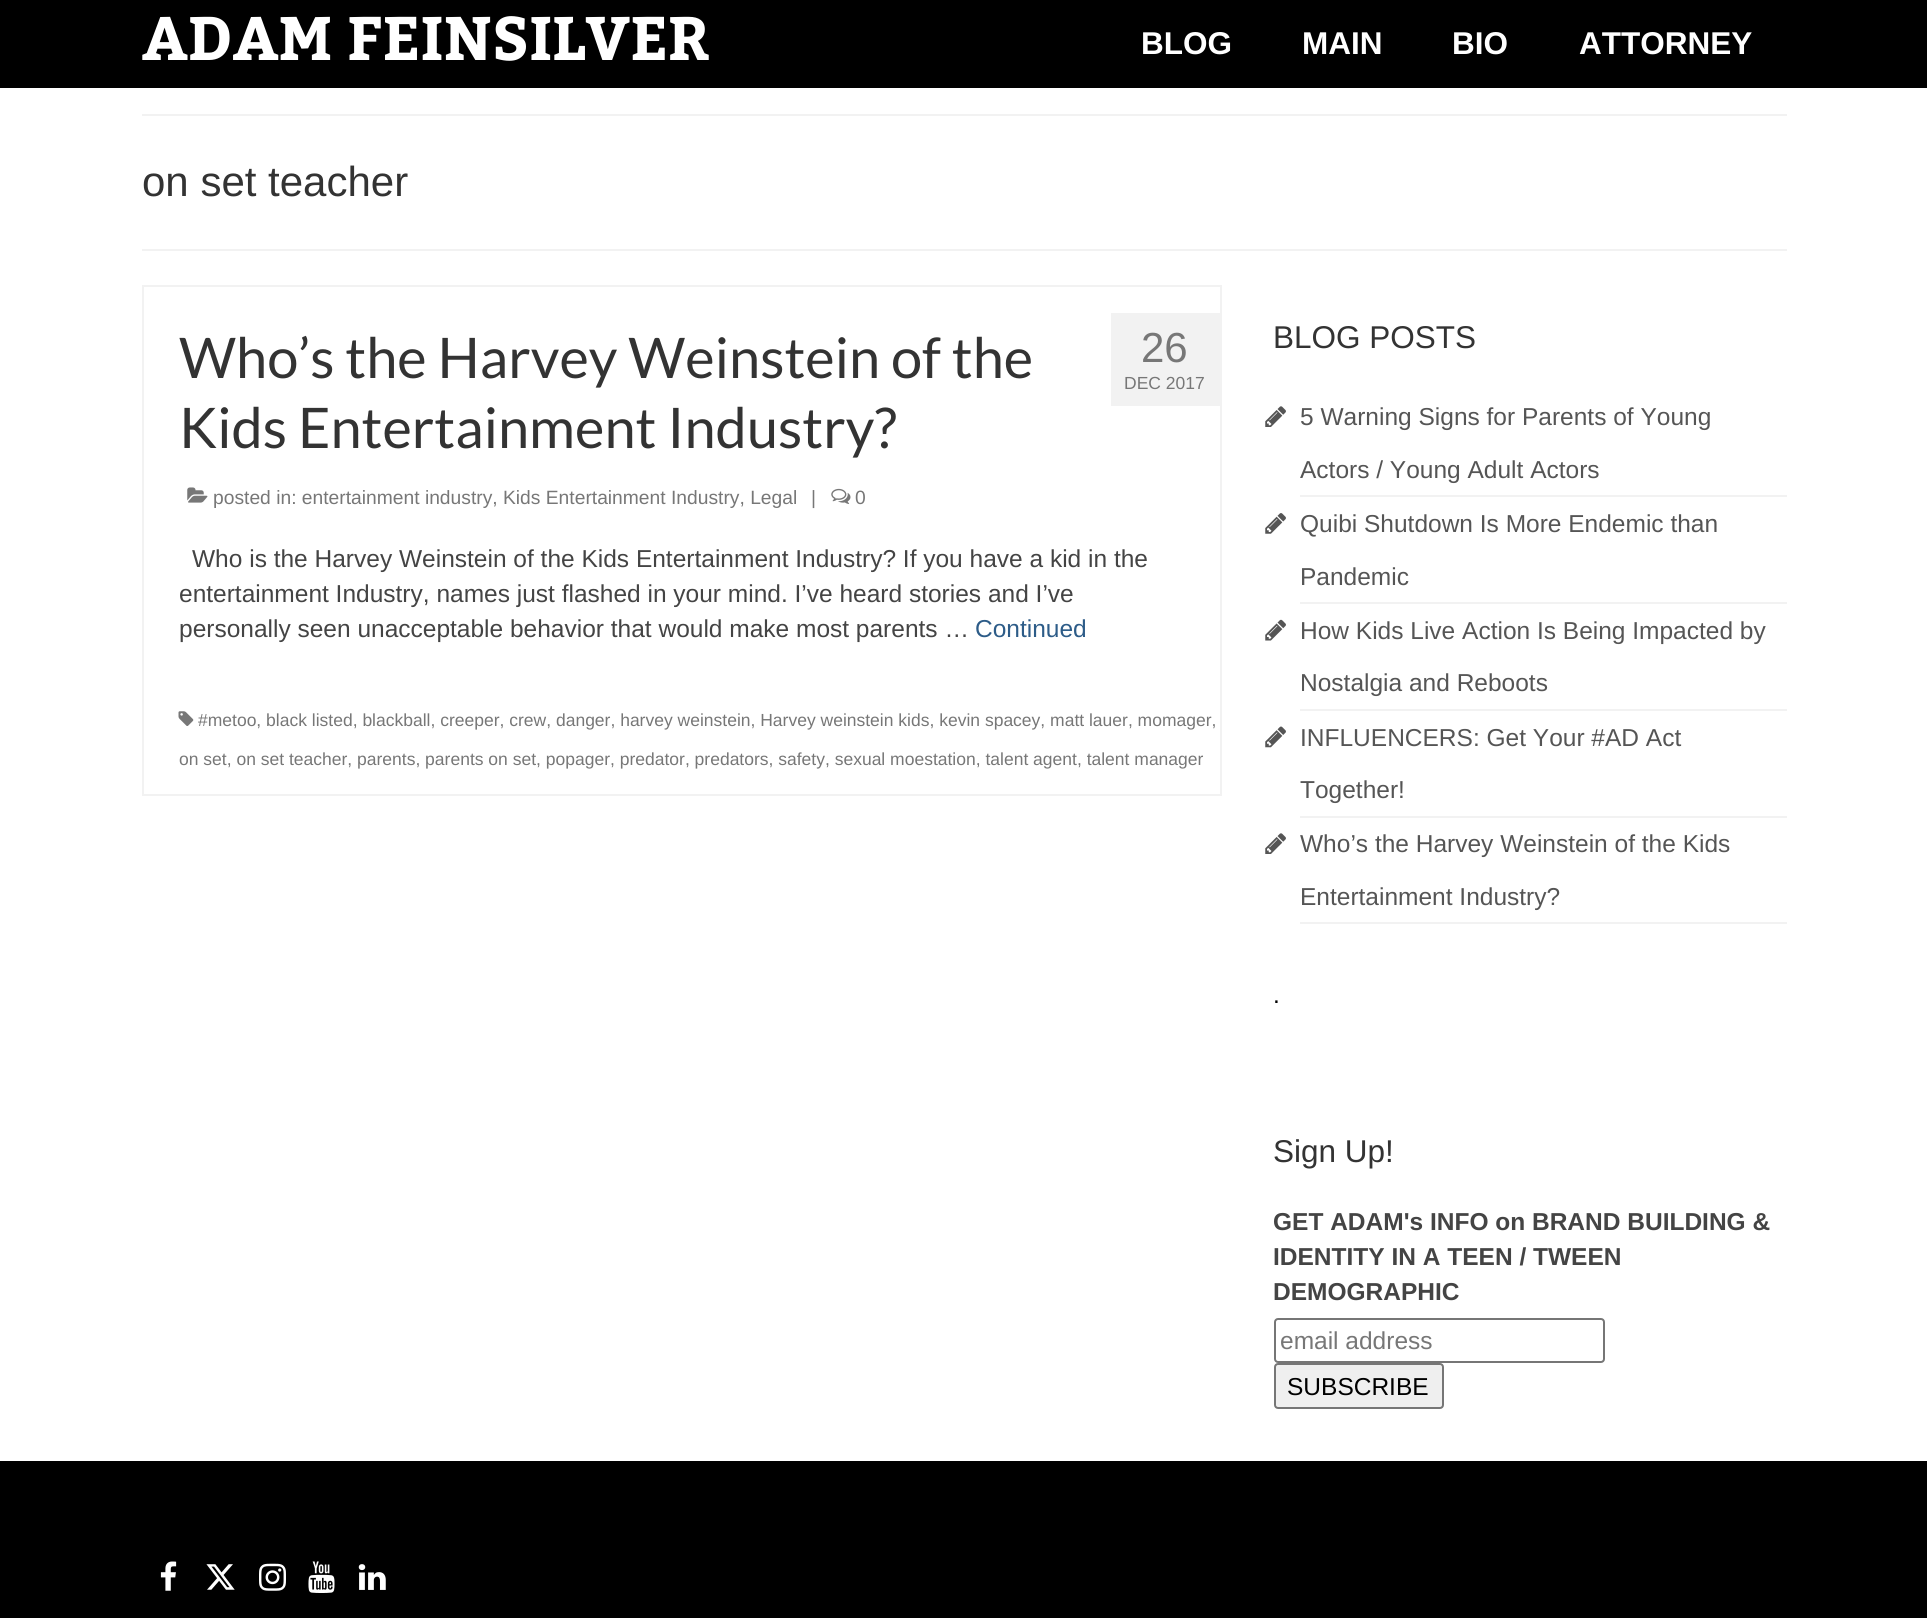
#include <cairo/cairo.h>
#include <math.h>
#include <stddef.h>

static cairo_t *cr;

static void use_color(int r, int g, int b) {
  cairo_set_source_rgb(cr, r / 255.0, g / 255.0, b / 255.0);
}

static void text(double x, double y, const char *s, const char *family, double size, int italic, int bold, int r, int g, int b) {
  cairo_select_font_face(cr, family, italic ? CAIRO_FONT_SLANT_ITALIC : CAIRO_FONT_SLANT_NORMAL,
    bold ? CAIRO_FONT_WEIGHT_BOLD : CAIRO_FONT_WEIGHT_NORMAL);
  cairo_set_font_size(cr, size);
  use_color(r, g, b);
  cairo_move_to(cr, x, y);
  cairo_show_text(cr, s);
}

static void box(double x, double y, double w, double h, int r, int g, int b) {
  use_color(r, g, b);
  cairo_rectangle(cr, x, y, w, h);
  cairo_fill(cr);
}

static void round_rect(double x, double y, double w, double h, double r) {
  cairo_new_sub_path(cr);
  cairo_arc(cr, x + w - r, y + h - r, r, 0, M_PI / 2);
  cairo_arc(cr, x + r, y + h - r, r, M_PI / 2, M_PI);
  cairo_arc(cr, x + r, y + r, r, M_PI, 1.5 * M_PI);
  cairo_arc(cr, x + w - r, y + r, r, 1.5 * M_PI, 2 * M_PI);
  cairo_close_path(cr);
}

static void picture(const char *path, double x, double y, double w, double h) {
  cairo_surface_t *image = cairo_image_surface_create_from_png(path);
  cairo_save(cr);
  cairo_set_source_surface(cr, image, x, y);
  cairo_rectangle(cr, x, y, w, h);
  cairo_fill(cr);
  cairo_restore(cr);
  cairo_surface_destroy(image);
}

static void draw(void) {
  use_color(255, 255, 255);
  cairo_paint(cr);
  box(0, 0, 1927, 88, 0, 0, 0);
  box(142, 114, 1645, 2, 242, 242, 242);
  box(142, 249, 1645, 2, 242, 242, 242);
  cairo_rectangle(cr, 143, 286, 1078, 509);
  cairo_stroke(cr);
  picture("img_01.png", 187, 487, 21, 16);
  picture("img_02.png", 831, 488, 20, 16);
  box(1111, 313, 109, 93, 242, 242, 242);
  picture("img_03.png", 178, 711, 16, 15);
  box(1300, 495, 487, 2, 242, 242, 242);
  picture("img_04.png", 1265, 406, 21, 21);
  box(1300, 602, 487, 2, 242, 242, 242);
  picture("img_05.png", 1265, 513, 21, 21);
  box(1300, 709, 487, 2, 242, 242, 242);
  picture("img_06.png", 1265, 619, 21, 22);
  box(1300, 816, 487, 2, 242, 242, 242);
  picture("img_07.png", 1265, 726, 21, 22);
  box(1300, 922, 487, 2, 242, 242, 242);
  picture("img_04.png", 1265, 833, 21, 21);
  round_rect(1275, 1319, 329, 43, 3);
  use_color(118, 118, 118);
  cairo_stroke(cr);
  use_color(239, 239, 239);
  round_rect(1275, 1364, 168, 44, 3);
  cairo_fill_preserve(cr);
  use_color(118, 118, 118);
  cairo_stroke(cr);
  box(0, 1461, 1927, 157, 0, 0, 0);
  picture("img_08.png", 160, 1561, 17, 30);
  picture("img_09.png", 206, 1564, 29, 26);
  picture("img_10.png", 259, 1563, 27, 28);
  picture("img_11.png", 308, 1561, 27, 32);
  picture("img_12.png", 358, 1564, 28, 26);
  text(142, 60, "ADAM FEINSILVER", "Kadwa", 61.25, 0, 1, 255, 255, 255);
  text(1141, 54, "BLOG", "Liberation Sans", 31.5, 0, 1, 255, 255, 255);
  text(1302, 54, "MAIN", "Liberation Sans", 31.5, 0, 1, 255, 255, 255);
  text(1452, 54, "BIO", "Liberation Sans", 31.5, 0, 1, 255, 255, 255);
  text(1579, 54, "ATTORNEY", "Liberation Sans", 31.5, 0, 1, 255, 255, 255);
  text(142, 196, "on set teacher", "Liberation Sans", 42, 0, 0, 51, 51, 51);
  text(179, 378, "Who’s the Harvey Weinstein of the", "Lato", 56, 0, 0, 51, 51, 51);
  text(179, 448, "Kids Entertainment Industry?", "Lato", 56, 0, 0, 51, 51, 51);
  text(213, 504, "posted in: entertainment industry, Kids Entertainment Industry, Legal", "Liberation Sans", 19.25, 0, 0, 119, 119, 119);
  text(811, 504, "|", "Liberation Sans", 19.25, 0, 0, 119, 119, 119);
  text(855, 504, "0", "Liberation Sans", 19.25, 0, 0, 119, 119, 119);
  text(1141, 362, "26", "Liberation Sans", 42, 0, 0, 119, 119, 119);
  text(1124, 389, "DEC 2017", "Liberation Sans", 17.5, 0, 0, 119, 119, 119);
  text(192, 567, "Who is the Harvey Weinstein of the Kids Entertainment Industry? If you have a kid in the", "Liberation Sans", 24.5, 0, 0, 68, 68, 68);
  text(179, 602, "entertainment Industry, names just flashed in your mind. I’ve heard stories and I’ve", "Liberation Sans", 24.5, 0, 0, 68, 68, 68);
  text(179, 637, "personally seen unacceptable behavior that would make most parents …", "Liberation Sans", 24.5, 0, 0, 68, 68, 68);
  text(975, 637, "Continued", "Liberation Sans", 24.5, 0, 0, 45, 92, 136);
  text(198, 726, "#metoo, black listed, blackball, creeper, crew, danger, harvey weinstein, Harvey weinstein kids, kevin spacey, matt lauer, momager,", "Liberation Sans", 17.5, 0, 0, 119, 119, 119);
  text(179, 765, "on set, on set teacher, parents, parents on set, popager, predator, predators, safety, sexual moestation, talent agent, talent manager", "Liberation Sans", 17.5, 0, 0, 119, 119, 119);
  text(1273, 348, "BLOG POSTS", "Liberation Sans", 31.5, 0, 0, 51, 51, 51);
  text(1300, 425, "5 Warning Signs for Parents of Young", "Liberation Sans", 24.5, 0, 0, 85, 85, 85);
  text(1300, 478, "Actors / Young Adult Actors", "Liberation Sans", 24.5, 0, 0, 85, 85, 85);
  text(1300, 532, "Quibi Shutdown Is More Endemic than", "Liberation Sans", 24.5, 0, 0, 85, 85, 85);
  text(1300, 585, "Pandemic", "Liberation Sans", 24.5, 0, 0, 85, 85, 85);
  text(1300, 639, "How Kids Live Action Is Being Impacted by", "Liberation Sans", 24.5, 0, 0, 85, 85, 85);
  text(1300, 691, "Nostalgia and Reboots", "Liberation Sans", 24.5, 0, 0, 85, 85, 85);
  text(1300, 746, "INFLUENCERS: Get Your #AD Act", "Liberation Sans", 24.5, 0, 0, 85, 85, 85);
  text(1300, 798, "Together!", "Liberation Sans", 24.5, 0, 0, 85, 85, 85);
  text(1300, 852, "Who’s the Harvey Weinstein of the Kids", "Liberation Sans", 24.5, 0, 0, 85, 85, 85);
  text(1300, 905, "Entertainment Industry?", "Liberation Sans", 24.5, 0, 0, 85, 85, 85);
  text(1273, 1003, ".", "Liberation Sans", 24.5, 0, 0, 0, 0, 0);
  text(1273, 1162, "Sign Up!", "Liberation Sans", 31.5, 0, 0, 51, 51, 51);
  text(1273, 1230, "GET ADAM's INFO on BRAND BUILDING &", "Liberation Sans", 24.5, 0, 1, 68, 68, 68);
  text(1273, 1265, "IDENTITY IN A TEEN / TWEEN", "Liberation Sans", 24.5, 0, 1, 68, 68, 68);
  text(1273, 1300, "DEMOGRAPHIC", "Liberation Sans", 24.5, 0, 1, 68, 68, 68);
  text(1280, 1349, "email address", "Liberation Sans", 24.5, 0, 0, 119, 119, 119);
  text(1287, 1395, "SUBSCRIBE", "Liberation Sans", 24.5, 0, 0, 0, 0, 0);
}

int main(void) {
  cairo_surface_t *surface = cairo_image_surface_create(CAIRO_FORMAT_RGB24, 1927, 1618);
  cr = cairo_create(surface);
  cairo_font_options_t *options = cairo_font_options_create();
  cairo_font_options_set_hint_metrics(options, CAIRO_HINT_METRICS_OFF);
  cairo_font_options_set_hint_style(options, CAIRO_HINT_STYLE_NONE);
  cairo_set_font_options(cr, options);
  cairo_set_miter_limit(cr, 4);
  draw();
  cairo_surface_write_to_png(surface, "out.png");
  cairo_font_options_destroy(options);
  cairo_destroy(cr);
  cairo_surface_destroy(surface);
  return 0;
}
